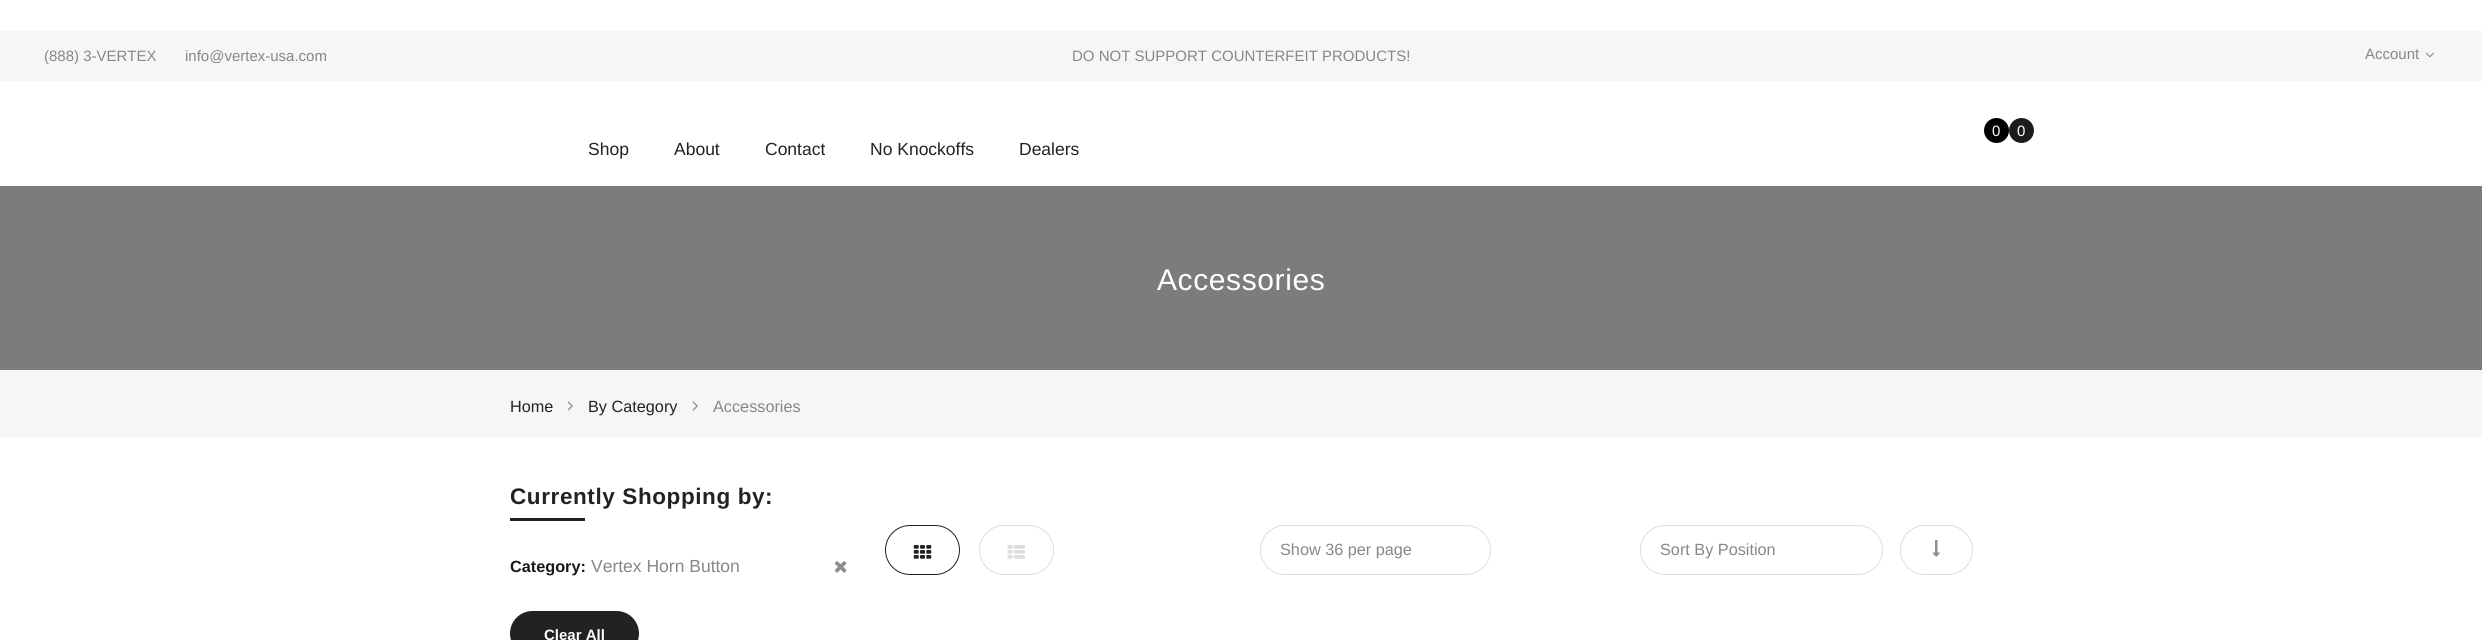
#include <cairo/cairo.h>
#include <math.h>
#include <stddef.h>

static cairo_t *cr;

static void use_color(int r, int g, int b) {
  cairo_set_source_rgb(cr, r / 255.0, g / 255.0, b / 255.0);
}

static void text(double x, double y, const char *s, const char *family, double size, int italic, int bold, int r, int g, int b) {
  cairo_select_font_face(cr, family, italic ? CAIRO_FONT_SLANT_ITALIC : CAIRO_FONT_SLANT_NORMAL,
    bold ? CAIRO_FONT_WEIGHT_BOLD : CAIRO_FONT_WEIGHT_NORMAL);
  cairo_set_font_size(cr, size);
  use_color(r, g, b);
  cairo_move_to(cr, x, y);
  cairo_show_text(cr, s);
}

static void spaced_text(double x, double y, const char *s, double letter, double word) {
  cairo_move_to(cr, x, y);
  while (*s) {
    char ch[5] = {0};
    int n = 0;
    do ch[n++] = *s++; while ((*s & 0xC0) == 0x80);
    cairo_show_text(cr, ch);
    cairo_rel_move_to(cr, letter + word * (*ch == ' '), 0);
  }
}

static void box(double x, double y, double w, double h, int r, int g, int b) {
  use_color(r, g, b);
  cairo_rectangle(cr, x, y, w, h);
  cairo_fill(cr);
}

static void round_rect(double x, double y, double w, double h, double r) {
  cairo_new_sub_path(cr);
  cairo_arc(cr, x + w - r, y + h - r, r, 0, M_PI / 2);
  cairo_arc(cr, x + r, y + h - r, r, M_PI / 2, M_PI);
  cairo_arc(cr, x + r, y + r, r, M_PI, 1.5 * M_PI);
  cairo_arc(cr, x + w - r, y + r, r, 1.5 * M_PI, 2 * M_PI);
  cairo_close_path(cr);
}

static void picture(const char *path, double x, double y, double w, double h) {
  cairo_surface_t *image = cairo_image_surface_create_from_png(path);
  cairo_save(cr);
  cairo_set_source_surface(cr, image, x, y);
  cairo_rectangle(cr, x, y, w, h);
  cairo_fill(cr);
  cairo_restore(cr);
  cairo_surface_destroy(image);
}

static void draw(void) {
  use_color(255, 255, 255);
  cairo_paint(cr);
  box(0, 31, 2482, 50, 246, 246, 248);
  picture("img_01.png", 2425, 52, 9, 6);
  use_color(0, 0, 0);
  cairo_arc(cr, 1996.5, 130.5, 12.5, 0, 2 * M_PI);
  cairo_fill(cr);
  use_color(29, 28, 28);
  cairo_arc(cr, 2021.5, 130.5, 12.5, 0, 2 * M_PI);
  cairo_fill(cr);
  box(0, 186, 2482, 184, 124, 124, 124);
  box(0, 370, 2482, 68, 246, 246, 248);
  picture("img_02.png", 567, 401, 6, 10);
  picture("img_02.png", 692, 401, 6, 10);
  box(510, 518, 75, 3, 34, 34, 34);
  picture("img_03.png", 834, 561, 13, 12);
  round_rect(511.5, 612.5, 126, 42, 21);
  cairo_fill_preserve(cr);
  cairo_set_line_width(cr, 3);
  cairo_stroke(cr);
  round_rect(885.5, 525.5, 74, 49, 24.5);
  cairo_set_line_width(cr, 1);
  cairo_stroke(cr);
  picture("img_04.png", 913, 545, 19, 14);
  round_rect(979.5, 525.5, 74, 49, 24.5);
  use_color(221, 221, 221);
  cairo_stroke(cr);
  picture("img_05.png", 1007, 545, 18, 14);
  round_rect(1260.5, 525.5, 230, 49, 24.5);
  cairo_stroke(cr);
  round_rect(1640.5, 525.5, 242, 49, 24.5);
  cairo_stroke(cr);
  round_rect(1900.5, 525.5, 72, 49, 24.5);
  cairo_stroke(cr);
  picture("img_06.png", 1932, 540, 8, 17);
  text(44, 61, "(888) 3-VERTEX", "Liberation Sans", 15, 0, 0, 135, 135, 135);
  text(185, 61, "info@vertex-usa.com", "Liberation Sans", 15, 0, 0, 135, 135, 135);
  text(1072, 61, "DO NOT SUPPORT COUNTERFEIT PRODUCTS!", "Liberation Sans", 15, 0, 0, 135, 135, 135);
  text(2365, 59, "Account", "Liberation Sans", 15, 0, 0, 135, 135, 135);
  text(1992, 136, "0", "Liberation Sans", 15, 0, 0, 255, 255, 255);
  text(2017, 136, "0", "Liberation Sans", 15, 0, 0, 255, 255, 255);
  text(588, 155, "Shop", "Liberation Sans", 17.5, 0, 0, 34, 34, 34);
  text(674, 155, "About", "Liberation Sans", 17.5, 0, 0, 34, 34, 34);
  text(765, 155, "Contact", "Liberation Sans", 17.5, 0, 0, 34, 34, 34);
  text(870, 155, "No Knockoffs", "Liberation Sans", 17.5, 0, 0, 34, 34, 34);
  text(1019, 155, "Dealers", "Liberation Sans", 17.5, 0, 0, 34, 34, 34);
  cairo_set_font_size(cr, 30);
  use_color(255, 255, 255);
  spaced_text(1157, 290, "Accessories", 0.6, 0);
  text(510, 412, "Home", "Liberation Sans", 16.25, 0, 0, 34, 34, 34);
  text(588, 412, "By Category", "Liberation Sans", 16.25, 0, 0, 34, 34, 34);
  text(713, 412, "Accessories", "Liberation Sans", 16.25, 0, 0, 135, 135, 135);
  cairo_select_font_face(cr, "Liberation Sans", CAIRO_FONT_SLANT_NORMAL, CAIRO_FONT_WEIGHT_BOLD);
  cairo_set_font_size(cr, 22.5);
  use_color(34, 34, 34);
  spaced_text(510, 504, "Currently Shopping by:", 0.6, 0);
  text(510, 572, "Category:", "Liberation Sans", 16.25, 0, 1, 26, 26, 26);
  text(591, 572, "Vertex Horn Button", "Liberation Sans", 17.5, 0, 0, 135, 135, 135);
  text(544, 640, "Clear All", "Liberation Sans", 15, 0, 1, 255, 255, 255);
  text(1280, 555, "Show 36 per page", "Liberation Sans", 16.25, 0, 0, 135, 135, 135);
  text(1660, 555, "Sort By Position", "Liberation Sans", 16.25, 0, 0, 135, 135, 135);
}

int main(void) {
  cairo_surface_t *surface = cairo_image_surface_create(CAIRO_FORMAT_RGB24, 2482, 640);
  cr = cairo_create(surface);
  cairo_font_options_t *options = cairo_font_options_create();
  cairo_font_options_set_hint_metrics(options, CAIRO_HINT_METRICS_OFF);
  cairo_font_options_set_hint_style(options, CAIRO_HINT_STYLE_NONE);
  cairo_set_font_options(cr, options);
  cairo_set_miter_limit(cr, 4);
  draw();
  cairo_surface_write_to_png(surface, "out.png");
  cairo_font_options_destroy(options);
  cairo_destroy(cr);
  cairo_surface_destroy(surface);
  return 0;
}
